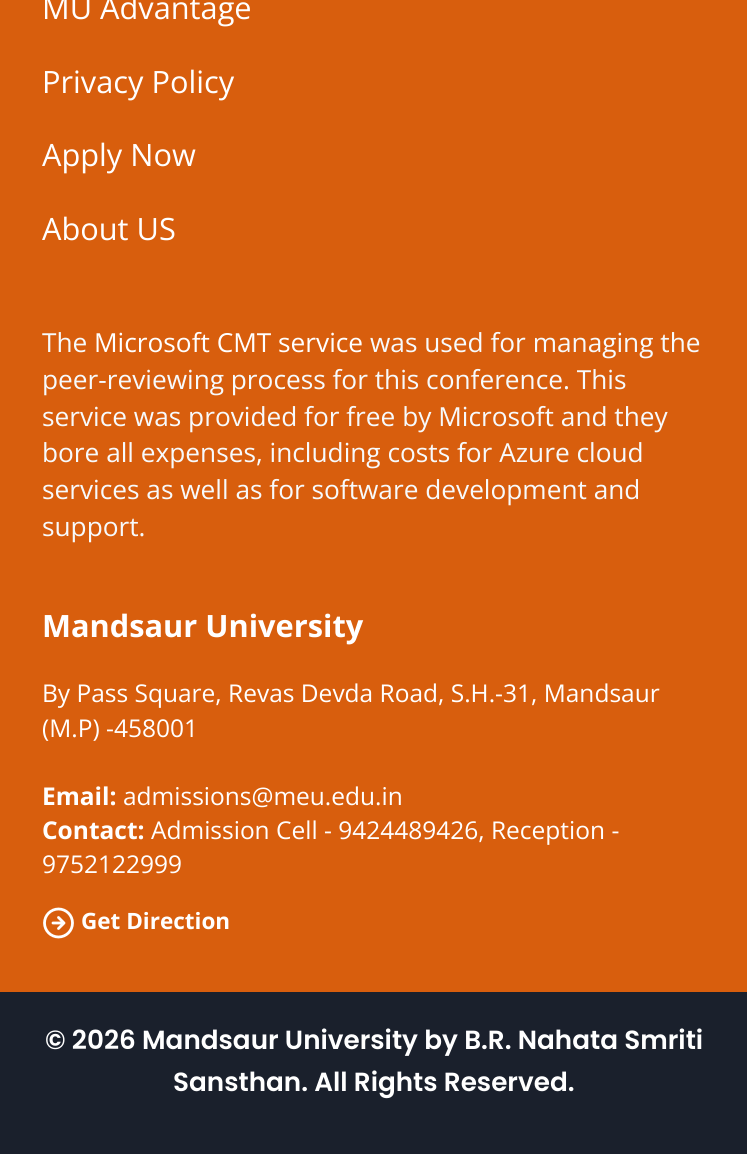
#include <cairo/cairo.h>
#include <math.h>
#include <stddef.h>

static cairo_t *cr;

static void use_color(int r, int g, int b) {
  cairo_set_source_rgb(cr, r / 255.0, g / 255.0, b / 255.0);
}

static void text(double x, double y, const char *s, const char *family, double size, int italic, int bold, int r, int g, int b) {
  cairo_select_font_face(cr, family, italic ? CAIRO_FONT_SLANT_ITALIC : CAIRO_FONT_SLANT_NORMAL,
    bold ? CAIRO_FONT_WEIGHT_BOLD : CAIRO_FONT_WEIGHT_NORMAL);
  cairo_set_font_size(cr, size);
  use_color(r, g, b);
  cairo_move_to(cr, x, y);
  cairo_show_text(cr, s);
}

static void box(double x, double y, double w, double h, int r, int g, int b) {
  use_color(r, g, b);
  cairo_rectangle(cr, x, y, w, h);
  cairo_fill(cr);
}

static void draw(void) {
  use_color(216, 94, 13);
  cairo_paint(cr);
  cairo_arc(cr, 58.5, 923, 14, 0, 2 * M_PI);
  use_color(255, 255, 255);
  cairo_set_line_width(cr, 2.8);
  cairo_stroke(cr);
  cairo_new_path(cr);
  cairo_move_to(cr, 58.5, 928.5);
  cairo_line_to(cr, 64, 923);
  cairo_line_to(cr, 58.5, 917.5);
  cairo_move_to(cr, 53, 923);
  cairo_line_to(cr, 64, 923);
  cairo_set_line_cap(cr, CAIRO_LINE_CAP_ROUND);
  cairo_set_line_join(cr, CAIRO_LINE_JOIN_ROUND);
  cairo_stroke(cr);
  box(0, 992, 747, 162, 26, 32, 44);
  text(42, 19, "MU Advantage", "Open Sans", 30.75, 0, 0, 255, 255, 255);
  text(42, 93, "Privacy Policy", "Open Sans", 30.75, 0, 0, 255, 255, 255);
  text(42, 166, "Apply Now", "Open Sans", 30.75, 0, 0, 255, 255, 255);
  text(42, 240, "About US", "Open Sans", 30.75, 0, 0, 255, 255, 255);
  text(42, 352, "The", "Open Sans", 26.25, 0, 0, 247, 250, 252);
  text(94, 352, "Microsoft CMT service", "Open Sans", 26.25, 0, 0, 255, 255, 255);
  text(370, 352, "was used for managing the", "Open Sans", 26.25, 0, 0, 247, 250, 252);
  text(42, 389, "peer-reviewing process for this conference. This", "Open Sans", 26.25, 0, 0, 247, 250, 252);
  text(42, 426, "service was provided for free by Microsoft and they", "Open Sans", 26.25, 0, 0, 247, 250, 252);
  text(42, 462, "bore all expenses, including costs for Azure cloud", "Open Sans", 26.25, 0, 0, 247, 250, 252);
  text(42, 499, "services as well as for software development and", "Open Sans", 26.25, 0, 0, 247, 250, 252);
  text(42, 536, "support.", "Open Sans", 26.25, 0, 0, 247, 250, 252);
  text(42, 637, "Mandsaur University", "Open Sans", 30.75, 0, 1, 255, 255, 255);
  text(42, 702, "By Pass Square, Revas Devda Road, S.H.-31, Mandsaur", "Open Sans", 24.5, 0, 0, 255, 255, 255);
  text(42, 737, "(M.P) -458001", "Open Sans", 24.5, 0, 0, 255, 255, 255);
  text(42, 805, "Email:", "Open Sans", 24.5, 0, 1, 255, 255, 255);
  text(123, 805, "admissions@meu.edu.in", "Open Sans", 24.5, 0, 0, 255, 255, 255);
  text(42, 839, "Contact:", "Open Sans", 24.5, 0, 1, 255, 255, 255);
  text(151, 839, "Admission Cell - 9424489426, Reception -", "Open Sans", 24.5, 0, 0, 255, 255, 255);
  text(42, 873, "9752122999", "Open Sans", 24.5, 0, 0, 255, 255, 255);
  text(81, 929, "Get Direction", "Open Sans", 22.5, 0, 1, 255, 255, 255);
  text(45, 1049, "© 2026 Mandsaur University by B.R. Nahata Smriti", "Poppins SemiBold", 26.25, 0, 0, 255, 255, 255);
  text(173, 1091, "Sansthan. All Rights Reserved.", "Poppins SemiBold", 26.25, 0, 0, 255, 255, 255);
}

int main(void) {
  cairo_surface_t *surface = cairo_image_surface_create(CAIRO_FORMAT_RGB24, 747, 1154);
  cr = cairo_create(surface);
  cairo_font_options_t *options = cairo_font_options_create();
  cairo_font_options_set_hint_metrics(options, CAIRO_HINT_METRICS_OFF);
  cairo_font_options_set_hint_style(options, CAIRO_HINT_STYLE_NONE);
  cairo_set_font_options(cr, options);
  cairo_set_miter_limit(cr, 4);
  draw();
  cairo_surface_write_to_png(surface, "out.png");
  cairo_font_options_destroy(options);
  cairo_destroy(cr);
  cairo_surface_destroy(surface);
  return 0;
}
